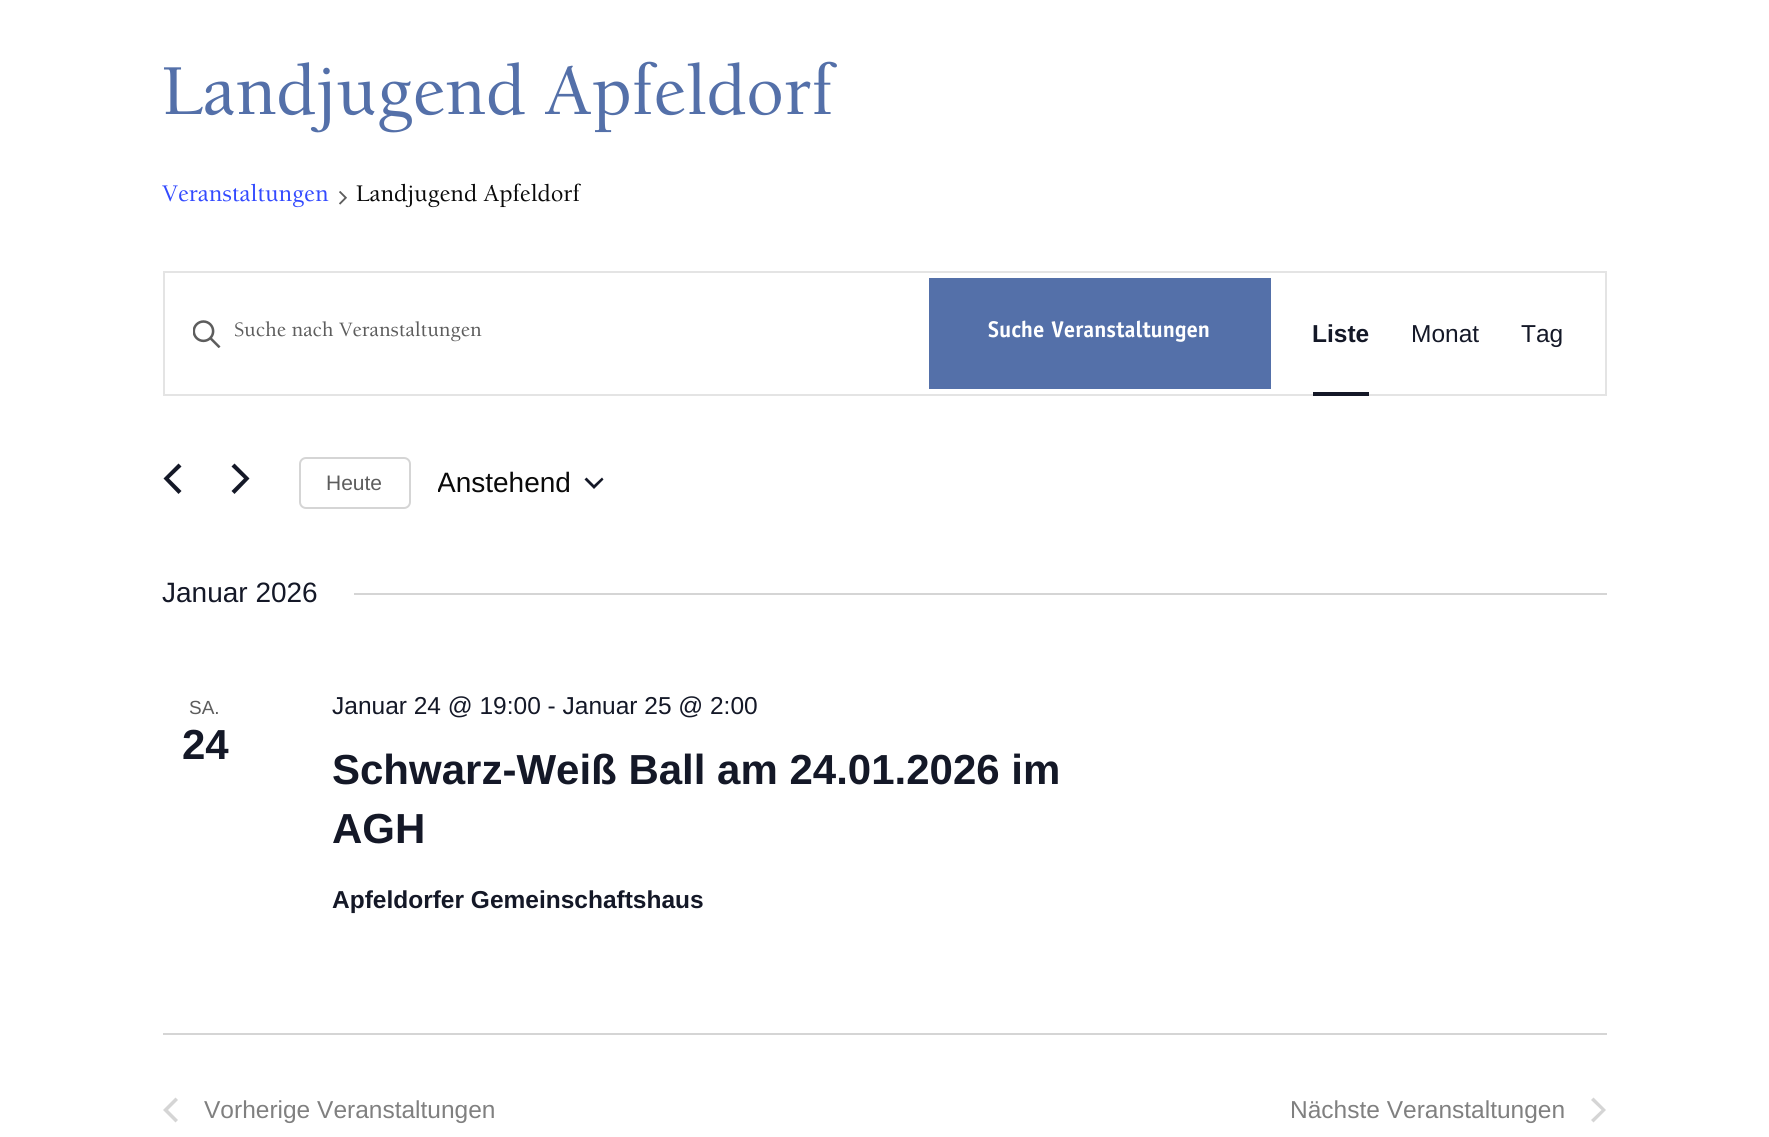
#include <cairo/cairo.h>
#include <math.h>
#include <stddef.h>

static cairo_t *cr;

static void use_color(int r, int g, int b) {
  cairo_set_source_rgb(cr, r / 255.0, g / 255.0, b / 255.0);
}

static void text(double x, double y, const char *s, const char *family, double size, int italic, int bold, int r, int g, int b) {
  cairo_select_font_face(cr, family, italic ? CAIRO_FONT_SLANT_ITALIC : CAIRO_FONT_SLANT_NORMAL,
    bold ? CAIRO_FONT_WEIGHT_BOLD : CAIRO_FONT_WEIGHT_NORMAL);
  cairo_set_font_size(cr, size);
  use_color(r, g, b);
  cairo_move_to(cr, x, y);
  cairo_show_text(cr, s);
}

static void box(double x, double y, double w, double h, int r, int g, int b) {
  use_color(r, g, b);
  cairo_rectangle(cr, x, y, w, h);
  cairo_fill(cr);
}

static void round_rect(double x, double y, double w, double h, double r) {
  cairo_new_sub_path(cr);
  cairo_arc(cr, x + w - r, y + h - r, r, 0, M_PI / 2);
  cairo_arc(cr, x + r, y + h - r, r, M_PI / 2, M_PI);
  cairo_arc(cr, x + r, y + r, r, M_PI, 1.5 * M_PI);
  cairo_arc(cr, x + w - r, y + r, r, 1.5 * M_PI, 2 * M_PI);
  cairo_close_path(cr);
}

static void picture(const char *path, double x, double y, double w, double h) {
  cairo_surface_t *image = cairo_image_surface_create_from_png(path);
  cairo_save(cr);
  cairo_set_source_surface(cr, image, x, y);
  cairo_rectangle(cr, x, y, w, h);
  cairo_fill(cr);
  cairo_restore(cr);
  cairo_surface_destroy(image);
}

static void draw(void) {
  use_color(255, 255, 255);
  cairo_paint(cr);
  picture("img_01.png", 339, 191, 8, 14);
  cairo_rectangle(cr, 164, 272, 1442, 123);
  use_color(228, 228, 228);
  cairo_stroke(cr);
  picture("img_02.png", 193, 320, 28, 28);
  box(929, 278, 342, 111, 84, 112, 169);
  box(1313, 392, 56, 4, 20, 24, 39);
  cairo_new_path(cr);
  cairo_move_to(cr, 181.5, 491);
  cairo_line_to(cr, 178.5, 494);
  cairo_line_to(cr, 163.5, 478.5);
  cairo_line_to(cr, 178.5, 463.5);
  cairo_line_to(cr, 181.5, 466.5);
  cairo_line_to(cr, 169, 478.5);
  cairo_close_path(cr);
  cairo_fill(cr);
  cairo_new_path(cr);
  cairo_move_to(cr, 231.5, 466.5);
  cairo_line_to(cr, 234.5, 463.5);
  cairo_line_to(cr, 249.5, 478.5);
  cairo_line_to(cr, 234.5, 494);
  cairo_line_to(cr, 231.5, 491);
  cairo_line_to(cr, 244, 478.5);
  cairo_close_path(cr);
  cairo_fill(cr);
  round_rect(300, 458, 110, 50, 6);
  use_color(213, 213, 213);
  cairo_stroke(cr);
  use_color(20, 24, 39);
  cairo_set_fill_rule(cr, CAIRO_FILL_RULE_EVEN_ODD);
  cairo_new_path(cr);
  cairo_move_to(cr, 586.5, 477.5);
  cairo_line_to(cr, 594, 485);
  cairo_line_to(cr, 602, 477.5);
  cairo_line_to(cr, 603.5, 479.5);
  cairo_line_to(cr, 594, 489);
  cairo_line_to(cr, 584.5, 479.5);
  cairo_close_path(cr);
  cairo_fill(cr);
  box(354, 593, 1253, 2, 213, 213, 213);
  box(163, 1033, 1444, 2, 213, 213, 213);
  cairo_set_fill_rule(cr, CAIRO_FILL_RULE_WINDING);
  cairo_new_path(cr);
  cairo_move_to(cr, 178, 1120);
  cairo_line_to(cr, 175.5, 1122.5);
  cairo_line_to(cr, 163, 1110);
  cairo_line_to(cr, 175.5, 1097.5);
  cairo_line_to(cr, 178, 1100);
  cairo_line_to(cr, 168, 1110);
  cairo_close_path(cr);
  cairo_fill(cr);
  cairo_new_path(cr);
  cairo_move_to(cr, 1591, 1100);
  cairo_line_to(cr, 1593.5, 1097.5);
  cairo_line_to(cr, 1606, 1110);
  cairo_line_to(cr, 1593.5, 1122.5);
  cairo_line_to(cr, 1591, 1120);
  cairo_line_to(cr, 1601.5, 1110);
  cairo_close_path(cr);
  cairo_fill(cr);
  text(162, 114, "Landjugend Apfeldorf", "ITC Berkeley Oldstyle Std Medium", 73.5, 0, 0, 84, 112, 169);
  text(162, 201, "Veranstaltungen", "ITC Berkeley Oldstyle Std Medium", 24.5, 0, 0, 51, 74, 255);
  text(356, 201, "Landjugend Apfeldorf", "ITC Berkeley Oldstyle Std Medium", 24.5, 0, 0, 10, 10, 10);
  cairo_save(cr);
  cairo_rectangle(cr, 235, 320, 624, 25);
  cairo_clip(cr);
  text(234, 336, "Suche nach Veranstaltungen", "ITC Berkeley Oldstyle Std Medium", 21, 0, 0, 93, 93, 93);
  cairo_restore(cr);
  text(988, 337, "Suche Veranstaltungen", "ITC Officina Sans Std", 22.75, 0, 1, 255, 255, 255);
  text(1312, 342, "Liste", "Liberation Sans", 24.5, 0, 1, 20, 24, 39);
  text(1411, 342, "Monat", "Liberation Sans", 24.5, 0, 0, 20, 24, 39);
  text(1521, 342, "Tag", "Liberation Sans", 24.5, 0, 0, 20, 24, 39);
  text(326, 490, "Heute", "Liberation Sans", 21, 0, 0, 93, 93, 93);
  cairo_save(cr);
  cairo_rectangle(cr, 438, 464, 166, 38);
  cairo_clip(cr);
  text(437, 492, "Anstehend", "Liberation Sans", 28, 0, 0, 10, 10, 10);
  cairo_restore(cr);
  text(162, 602, "Januar 2026", "Liberation Sans", 28, 0, 0, 20, 24, 39);
  text(189, 714, "SA.", "Liberation Sans", 19, 0, 0, 93, 93, 93);
  text(182, 759, "24", "Liberation Sans", 42, 0, 1, 20, 24, 39);
  text(332, 714, "Januar 24 @ 19:00 - Januar 25 @ 2:00", "Liberation Sans", 24.5, 0, 0, 20, 24, 39);
  text(332, 784, "Schwarz-Weiß Ball am 24.01.2026 im", "Liberation Sans", 42, 0, 1, 20, 24, 39);
  text(332, 843, "AGH", "Liberation Sans", 42, 0, 1, 20, 24, 39);
  text(332, 908, "Apfeldorfer Gemeinschaftshaus", "Liberation Sans", 24.5, 0, 1, 20, 24, 39);
  text(204, 1118, "Vorherige Veranstaltungen", "Liberation Sans", 24.5, 0, 0, 128, 128, 128);
  text(1290, 1118, "Nächste Veranstaltungen", "Liberation Sans", 24.5, 0, 0, 128, 128, 128);
}

int main(void) {
  cairo_surface_t *surface = cairo_image_surface_create(CAIRO_FORMAT_RGB24, 1769, 1137);
  cr = cairo_create(surface);
  cairo_font_options_t *options = cairo_font_options_create();
  cairo_font_options_set_hint_metrics(options, CAIRO_HINT_METRICS_OFF);
  cairo_font_options_set_hint_style(options, CAIRO_HINT_STYLE_NONE);
  cairo_set_font_options(cr, options);
  cairo_set_miter_limit(cr, 4);
  draw();
  cairo_surface_write_to_png(surface, "out.png");
  cairo_font_options_destroy(options);
  cairo_destroy(cr);
  cairo_surface_destroy(surface);
  return 0;
}
